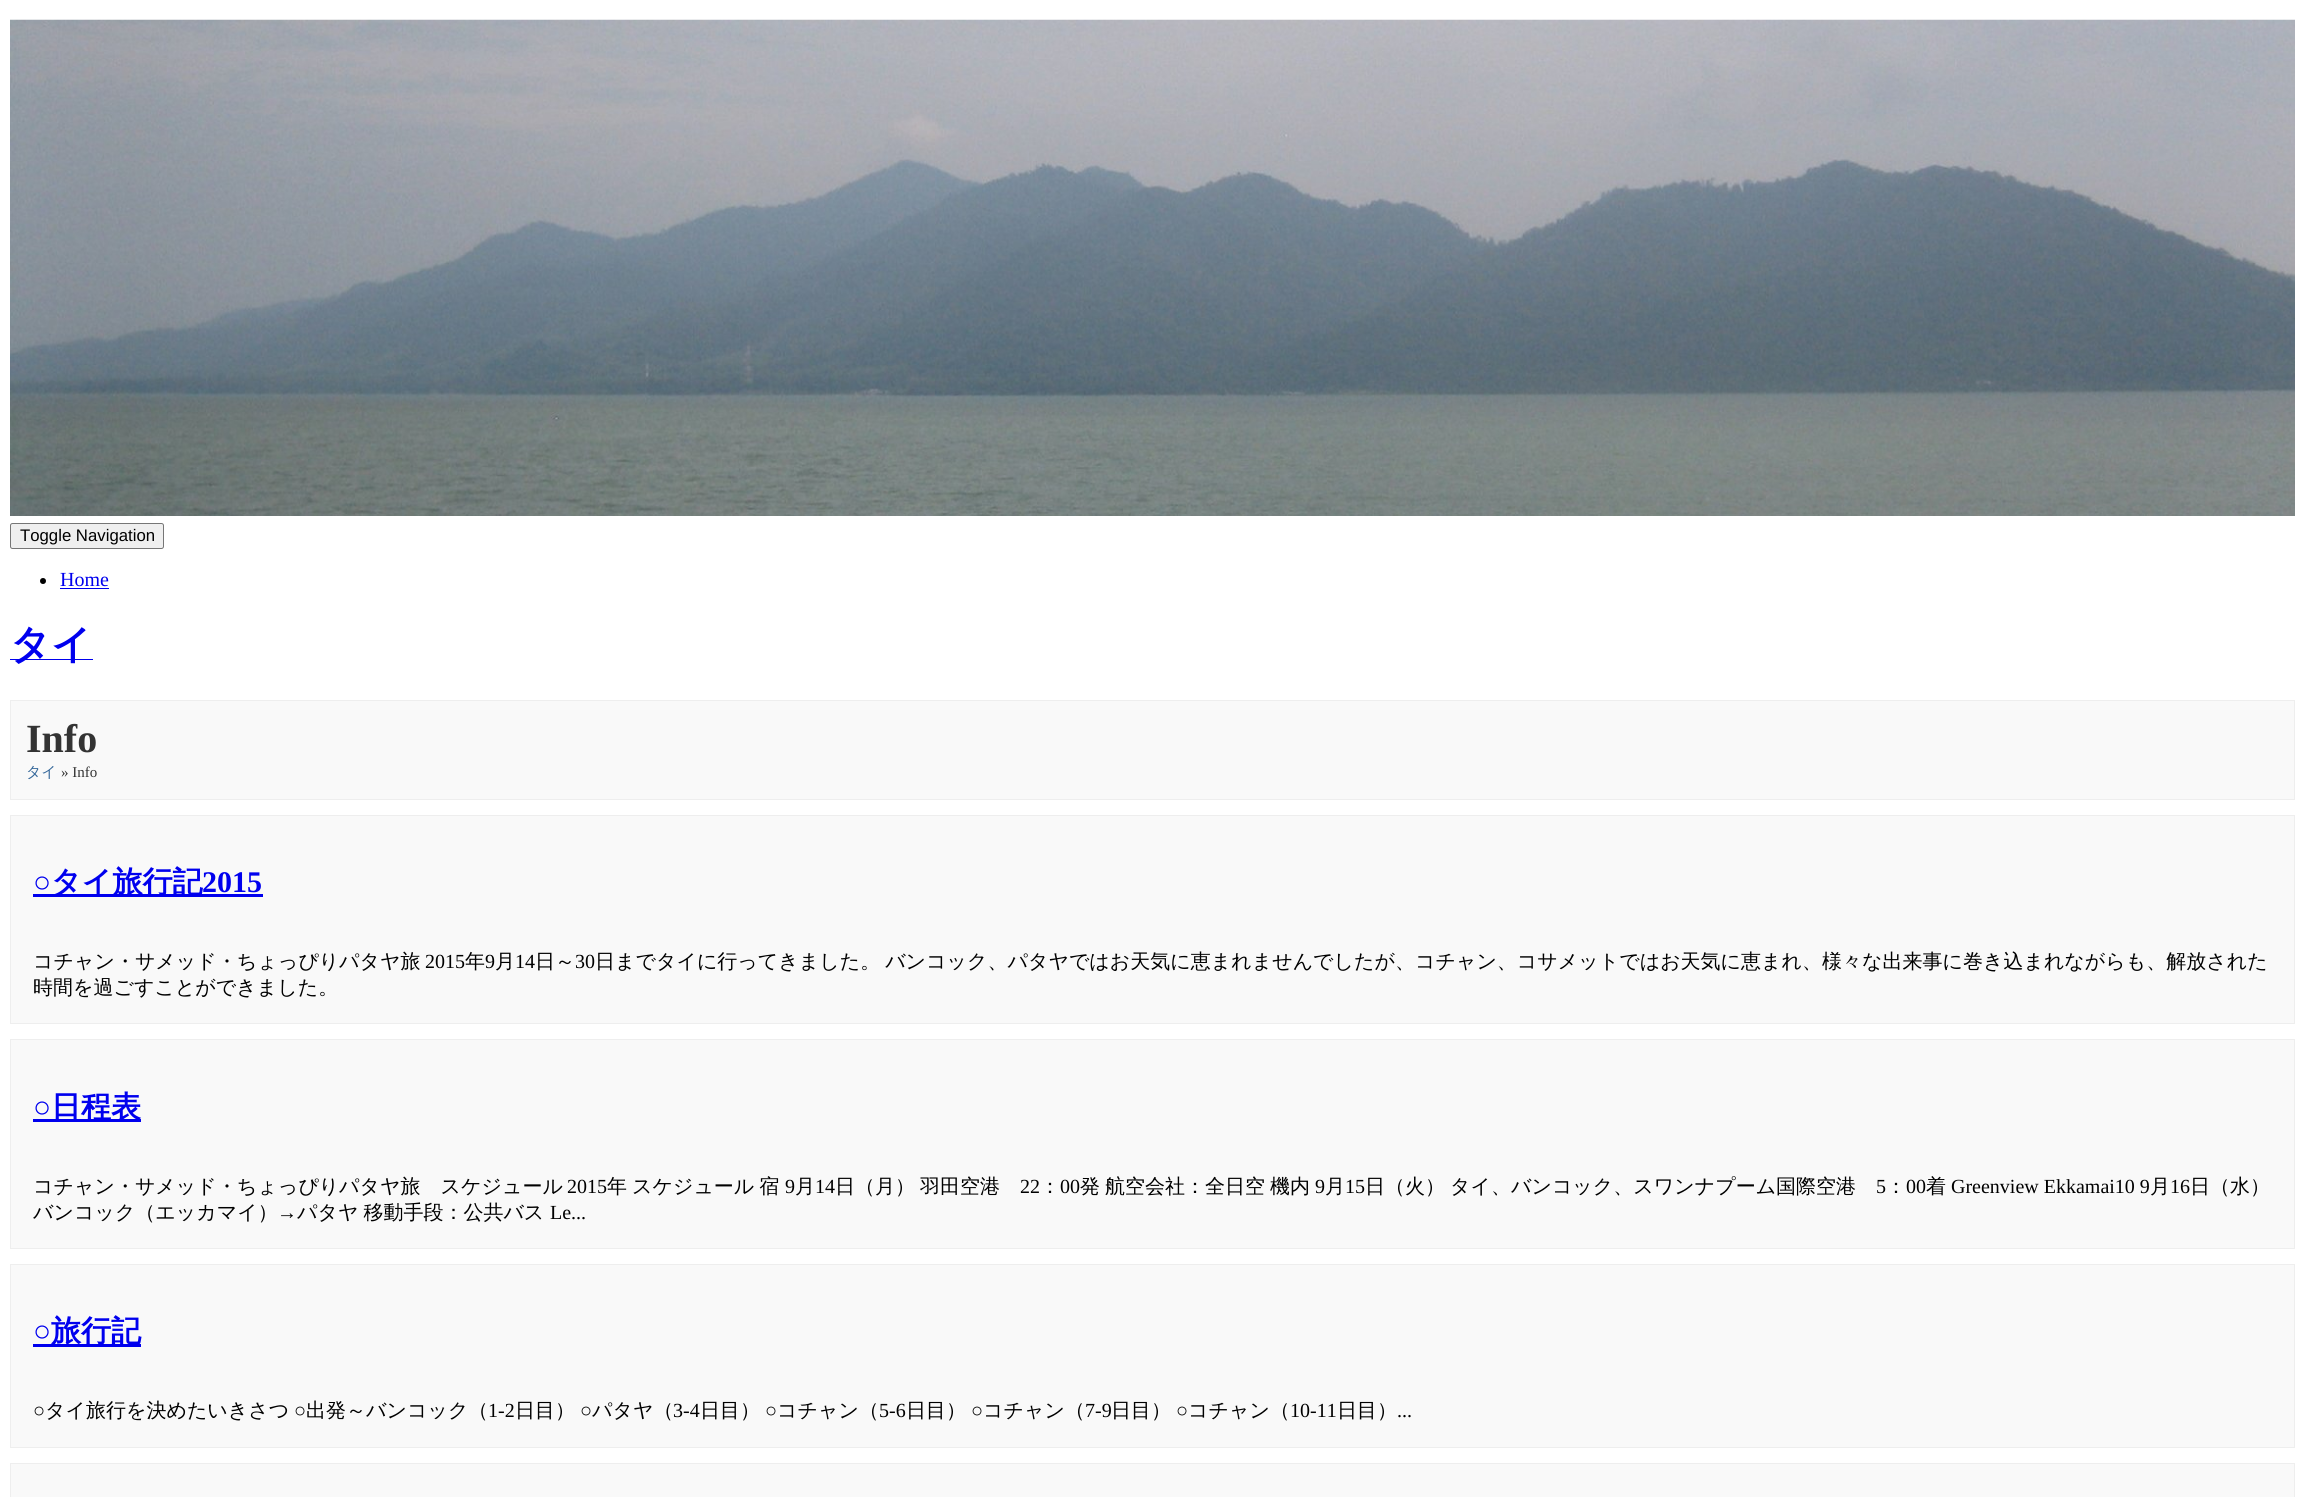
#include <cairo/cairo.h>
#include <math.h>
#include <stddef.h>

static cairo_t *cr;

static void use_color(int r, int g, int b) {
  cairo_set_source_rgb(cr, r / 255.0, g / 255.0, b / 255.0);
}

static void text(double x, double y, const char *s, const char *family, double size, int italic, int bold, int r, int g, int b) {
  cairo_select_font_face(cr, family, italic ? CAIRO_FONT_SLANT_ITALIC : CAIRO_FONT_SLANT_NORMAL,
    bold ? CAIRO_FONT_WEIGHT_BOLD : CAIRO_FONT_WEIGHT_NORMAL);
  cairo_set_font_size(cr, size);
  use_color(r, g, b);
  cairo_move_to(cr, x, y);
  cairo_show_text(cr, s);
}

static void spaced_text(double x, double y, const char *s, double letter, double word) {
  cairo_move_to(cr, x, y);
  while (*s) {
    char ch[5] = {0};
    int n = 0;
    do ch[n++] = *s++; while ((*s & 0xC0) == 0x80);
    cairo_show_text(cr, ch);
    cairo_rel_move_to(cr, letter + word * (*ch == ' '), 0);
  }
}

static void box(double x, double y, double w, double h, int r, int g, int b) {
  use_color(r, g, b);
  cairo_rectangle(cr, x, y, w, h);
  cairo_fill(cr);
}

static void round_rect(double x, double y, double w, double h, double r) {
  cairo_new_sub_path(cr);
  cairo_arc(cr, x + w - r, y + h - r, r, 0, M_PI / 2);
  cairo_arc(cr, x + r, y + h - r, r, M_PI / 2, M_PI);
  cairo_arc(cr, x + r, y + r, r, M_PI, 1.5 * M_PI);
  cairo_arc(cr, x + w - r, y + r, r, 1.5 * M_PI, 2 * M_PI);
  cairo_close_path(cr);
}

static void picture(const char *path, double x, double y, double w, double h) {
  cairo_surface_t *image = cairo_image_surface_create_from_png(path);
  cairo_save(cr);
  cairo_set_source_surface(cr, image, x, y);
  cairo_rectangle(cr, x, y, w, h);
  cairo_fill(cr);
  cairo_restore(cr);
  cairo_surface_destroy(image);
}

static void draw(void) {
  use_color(255, 255, 255);
  cairo_paint(cr);
  picture("img_01.png", 10, 19, 2285, 497);
  use_color(239, 239, 239);
  round_rect(10.5, 523.5, 153, 25, 2);
  cairo_fill_preserve(cr);
  use_color(118, 118, 118);
  cairo_set_line_width(cr, 1);
  cairo_stroke(cr);
  use_color(0, 0, 0);
  cairo_arc(cr, 43, 581, 3, 0, 2 * M_PI);
  cairo_fill(cr);
  box(60, 588, 49, 1, 0, 0, 238);
  box(10, 659, 83, 1, 0, 0, 238);
  use_color(249, 249, 249);
  cairo_rectangle(cr, 10.5, 700.5, 2284, 99);
  cairo_fill_preserve(cr);
  use_color(238, 238, 238);
  cairo_stroke(cr);
  use_color(249, 249, 249);
  cairo_rectangle(cr, 10.5, 815.5, 2284, 208);
  cairo_fill_preserve(cr);
  use_color(238, 238, 238);
  cairo_stroke(cr);
  box(33, 894, 230, 3, 0, 0, 238);
  use_color(249, 249, 249);
  cairo_rectangle(cr, 10.5, 1039.5, 2284, 209);
  cairo_fill_preserve(cr);
  use_color(238, 238, 238);
  cairo_stroke(cr);
  box(33, 1119, 108, 3, 0, 0, 238);
  use_color(249, 249, 249);
  cairo_rectangle(cr, 10.5, 1264.5, 2284, 183);
  cairo_fill_preserve(cr);
  use_color(238, 238, 238);
  cairo_stroke(cr);
  box(33, 1344, 108, 3, 0, 0, 238);
  use_color(249, 249, 249);
  cairo_rectangle(cr, 10.5, 1463.5, 2284, 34);
  cairo_fill_preserve(cr);
  use_color(238, 238, 238);
  cairo_stroke(cr);
  text(20, 541, "Toggle Navigation", "Liberation Sans", 16.75, 0, 0, 0, 0, 0);
  text(60, 586, "Home", "Liberation Serif", 20, 0, 0, 0, 0, 238);
  text(10, 658, "タイ", "WenQuanYi Zen Hei", 40, 0, 1, 0, 0, 238);
  text(26, 752, "Info", "Liberation Serif", 40, 0, 1, 51, 51, 51);
  text(26, 777, "タイ", "WenQuanYi Zen Hei Medium", 15, 0, 0, 51, 102, 153);
  text(61, 777, "» Info", "Liberation Serif", 15, 0, 0, 51, 51, 51);
  text(33, 892, "○", "Liberation Serif", 30, 0, 1, 0, 0, 238);
  text(51, 892, "タイ旅行記", "WenQuanYi Zen Hei", 30, 0, 1, 0, 0, 238);
  text(202, 892, "2015", "Liberation Serif", 30, 0, 1, 0, 0, 238);
  text(33, 968, "コチャン・サメッド・ちょっぴりパタヤ旅", "WenQuanYi Zen Hei Medium", 20, 0, 0, 0, 0, 0);
  text(425, 968, "2015", "Liberation Serif", 20, 0, 0, 0, 0, 0);
  text(465, 968, "年", "WenQuanYi Zen Hei Medium", 20, 0, 0, 0, 0, 0);
  text(485, 968, "9", "Liberation Serif", 20, 0, 0, 0, 0, 0);
  text(495, 968, "月", "WenQuanYi Zen Hei Medium", 20, 0, 0, 0, 0, 0);
  text(515, 968, "14", "Liberation Serif", 20, 0, 0, 0, 0, 0);
  text(535, 968, "日～", "WenQuanYi Zen Hei Medium", 20, 0, 0, 0, 0, 0);
  text(575, 968, "30", "Liberation Serif", 20, 0, 0, 0, 0, 0);
  cairo_select_font_face(cr, "WenQuanYi Zen Hei Medium", CAIRO_FONT_SLANT_NORMAL, CAIRO_FONT_WEIGHT_NORMAL);
  spaced_text(595, 968, "日までタイに行ってきました。 バンコック、パタヤではお天気に恵まれませんでしたが、コチャン、コサメットではお天気に恵まれ、様々な出来事に巻き込まれながらも、解放された", 0, -1);
  text(33, 994, "時間を過ごすことができました。", "WenQuanYi Zen Hei Medium", 20, 0, 0, 0, 0, 0);
  text(33, 1117, "○", "Liberation Serif", 30, 0, 1, 0, 0, 238);
  text(51, 1117, "日程表", "WenQuanYi Zen Hei", 30, 0, 1, 0, 0, 238);
  text(33, 1193, "コチャン・サメッド・ちょっぴりパタヤ旅　スケジュール", "WenQuanYi Zen Hei Medium", 20, 0, 0, 0, 0, 0);
  text(567, 1193, "2015", "Liberation Serif", 20, 0, 0, 0, 0, 0);
  cairo_select_font_face(cr, "WenQuanYi Zen Hei Medium", CAIRO_FONT_SLANT_NORMAL, CAIRO_FONT_WEIGHT_NORMAL);
  spaced_text(607, 1193, "年 スケジュール 宿", 0, -1);
  text(785, 1193, "9", "Liberation Serif", 20, 0, 0, 0, 0, 0);
  text(795, 1193, "月", "WenQuanYi Zen Hei Medium", 20, 0, 0, 0, 0, 0);
  text(815, 1193, "14", "Liberation Serif", 20, 0, 0, 0, 0, 0);
  text(835, 1193, "日（月）", "WenQuanYi Zen Hei Medium", 20, 0, 0, 0, 0, 0);
  text(920, 1193, "羽田空港", "WenQuanYi Zen Hei Medium", 20, 0, 0, 0, 0, 0);
  text(1020, 1193, "22", "Liberation Serif", 20, 0, 0, 0, 0, 0);
  text(1040, 1193, "：", "WenQuanYi Zen Hei Medium", 20, 0, 0, 0, 0, 0);
  text(1060, 1193, "00", "Liberation Serif", 20, 0, 0, 0, 0, 0);
  cairo_select_font_face(cr, "WenQuanYi Zen Hei Medium", CAIRO_FONT_SLANT_NORMAL, CAIRO_FONT_WEIGHT_NORMAL);
  spaced_text(1080, 1193, "発 航空会社：全日空", 0, -1);
  text(1270, 1193, "機内", "WenQuanYi Zen Hei Medium", 20, 0, 0, 0, 0, 0);
  text(1315, 1193, "9", "Liberation Serif", 20, 0, 0, 0, 0, 0);
  text(1325, 1193, "月", "WenQuanYi Zen Hei Medium", 20, 0, 0, 0, 0, 0);
  text(1345, 1193, "15", "Liberation Serif", 20, 0, 0, 0, 0, 0);
  text(1365, 1193, "日（火）", "WenQuanYi Zen Hei Medium", 20, 0, 0, 0, 0, 0);
  text(1450, 1193, "タイ、バンコック、スワンナプーム国際空港", "WenQuanYi Zen Hei Medium", 20, 0, 0, 0, 0, 0);
  text(1876, 1193, "5", "Liberation Serif", 20, 0, 0, 0, 0, 0);
  text(1886, 1193, "：", "WenQuanYi Zen Hei Medium", 20, 0, 0, 0, 0, 0);
  text(1906, 1193, "00", "Liberation Serif", 20, 0, 0, 0, 0, 0);
  text(1926, 1193, "着", "WenQuanYi Zen Hei Medium", 20, 0, 0, 0, 0, 0);
  text(1951, 1193, "Greenview Ekkamai10 9", "Liberation Serif", 20, 0, 0, 0, 0, 0);
  text(2150, 1193, "月", "WenQuanYi Zen Hei Medium", 20, 0, 0, 0, 0, 0);
  text(2170, 1193, "16", "Liberation Serif", 20, 0, 0, 0, 0, 0);
  text(2190, 1193, "日（水）", "WenQuanYi Zen Hei Medium", 20, 0, 0, 0, 0, 0);
  text(33, 1219, "バンコック（エッカマイ）", "WenQuanYi Zen Hei Medium", 20, 0, 0, 0, 0, 0);
  text(277, 1219, "→", "Liberation Serif", 20, 0, 0, 0, 0, 0);
  cairo_select_font_face(cr, "WenQuanYi Zen Hei Medium", CAIRO_FONT_SLANT_NORMAL, CAIRO_FONT_WEIGHT_NORMAL);
  spaced_text(297, 1219, "パタヤ 移動手段：公共バス", 0, -1);
  text(550, 1219, "Le...", "Liberation Serif", 20, 0, 0, 0, 0, 0);
  text(33, 1341, "○", "Liberation Serif", 30, 0, 1, 0, 0, 238);
  text(51, 1341, "旅行記", "WenQuanYi Zen Hei", 30, 0, 1, 0, 0, 238);
  text(33, 1417, "○", "Liberation Serif", 20, 0, 0, 0, 0, 0);
  text(45, 1417, "タイ旅行を決めたいきさつ", "WenQuanYi Zen Hei Medium", 20, 0, 0, 0, 0, 0);
  text(294, 1417, "○", "Liberation Serif", 20, 0, 0, 0, 0, 0);
  text(306, 1417, "出発～バンコック（", "WenQuanYi Zen Hei Medium", 20, 0, 0, 0, 0, 0);
  text(488, 1417, "1-2", "Liberation Serif", 20, 0, 0, 0, 0, 0);
  text(515, 1417, "日目）", "WenQuanYi Zen Hei Medium", 20, 0, 0, 0, 0, 0);
  text(580, 1417, "○", "Liberation Serif", 20, 0, 0, 0, 0, 0);
  text(592, 1417, "パタヤ（", "WenQuanYi Zen Hei Medium", 20, 0, 0, 0, 0, 0);
  text(673, 1417, "3-4", "Liberation Serif", 20, 0, 0, 0, 0, 0);
  text(700, 1417, "日目）", "WenQuanYi Zen Hei Medium", 20, 0, 0, 0, 0, 0);
  text(765, 1417, "○", "Liberation Serif", 20, 0, 0, 0, 0, 0);
  text(777, 1417, "コチャン（", "WenQuanYi Zen Hei Medium", 20, 0, 0, 0, 0, 0);
  text(879, 1417, "5-6", "Liberation Serif", 20, 0, 0, 0, 0, 0);
  text(906, 1417, "日目）", "WenQuanYi Zen Hei Medium", 20, 0, 0, 0, 0, 0);
  text(971, 1417, "○", "Liberation Serif", 20, 0, 0, 0, 0, 0);
  text(983, 1417, "コチャン（", "WenQuanYi Zen Hei Medium", 20, 0, 0, 0, 0, 0);
  text(1085, 1417, "7-9", "Liberation Serif", 20, 0, 0, 0, 0, 0);
  text(1111, 1417, "日目）", "WenQuanYi Zen Hei Medium", 20, 0, 0, 0, 0, 0);
  text(1176, 1417, "○", "Liberation Serif", 20, 0, 0, 0, 0, 0);
  text(1188, 1417, "コチャン（", "WenQuanYi Zen Hei Medium", 20, 0, 0, 0, 0, 0);
  text(1290, 1417, "10-11", "Liberation Serif", 20, 0, 0, 0, 0, 0);
  text(1337, 1417, "日目）", "WenQuanYi Zen Hei Medium", 20, 0, 0, 0, 0, 0);
  text(1397, 1417, "...", "Liberation Serif", 20, 0, 0, 0, 0, 0);
}

int main(void) {
  cairo_surface_t *surface = cairo_image_surface_create(CAIRO_FORMAT_RGB24, 2304, 1497);
  cr = cairo_create(surface);
  cairo_font_options_t *options = cairo_font_options_create();
  cairo_font_options_set_hint_metrics(options, CAIRO_HINT_METRICS_OFF);
  cairo_font_options_set_hint_style(options, CAIRO_HINT_STYLE_NONE);
  cairo_set_font_options(cr, options);
  cairo_set_miter_limit(cr, 4);
  draw();
  cairo_surface_write_to_png(surface, "out.png");
  cairo_font_options_destroy(options);
  cairo_destroy(cr);
  cairo_surface_destroy(surface);
  return 0;
}
